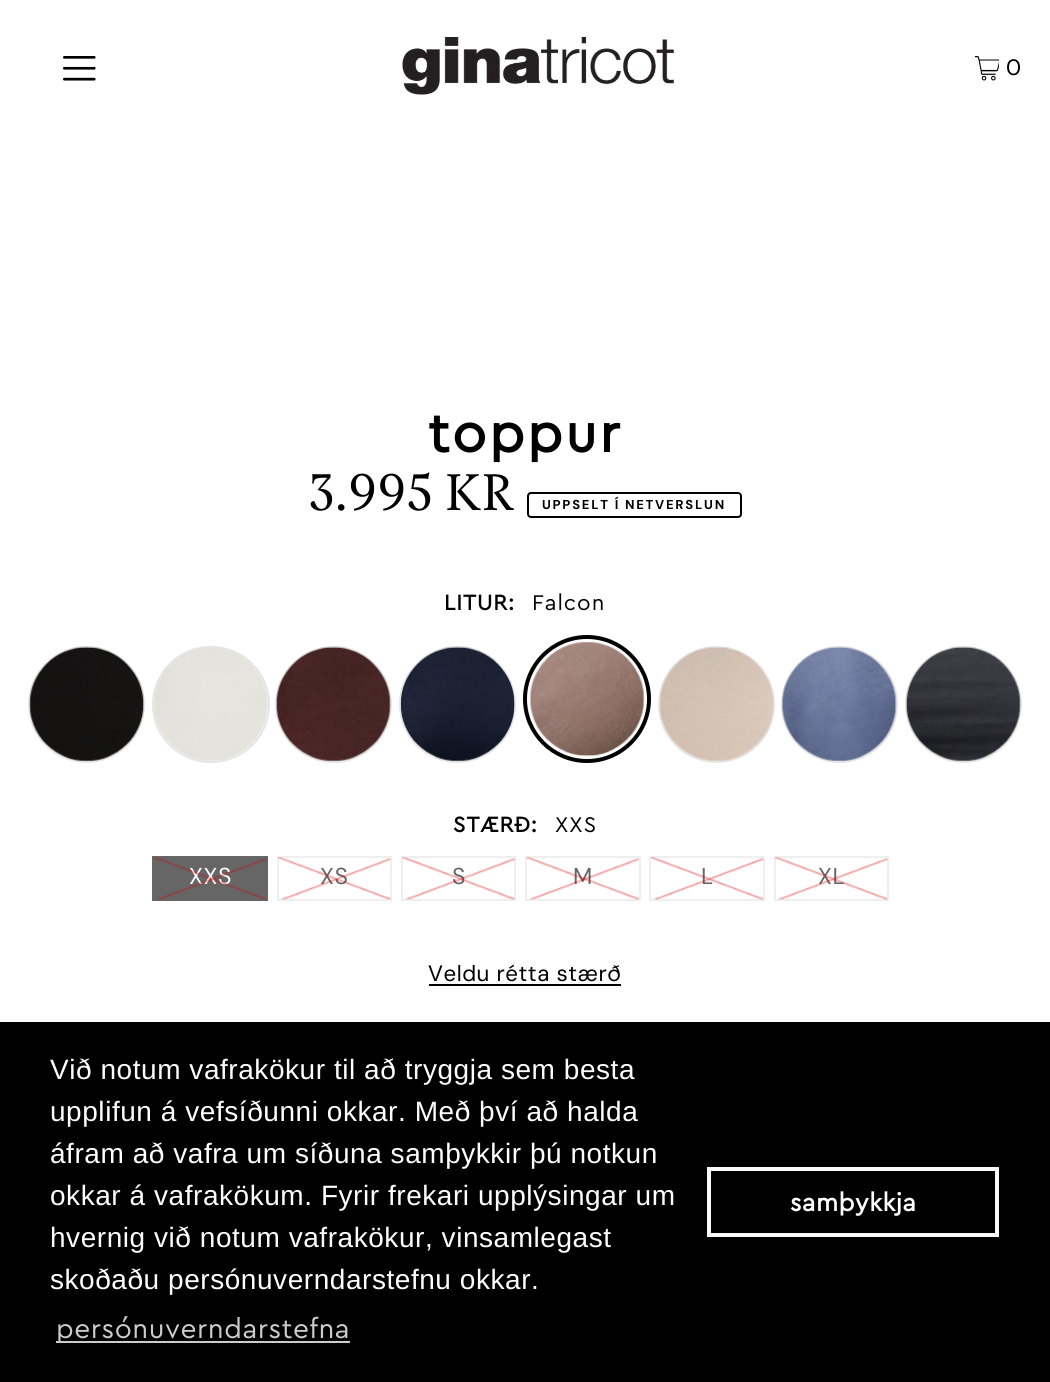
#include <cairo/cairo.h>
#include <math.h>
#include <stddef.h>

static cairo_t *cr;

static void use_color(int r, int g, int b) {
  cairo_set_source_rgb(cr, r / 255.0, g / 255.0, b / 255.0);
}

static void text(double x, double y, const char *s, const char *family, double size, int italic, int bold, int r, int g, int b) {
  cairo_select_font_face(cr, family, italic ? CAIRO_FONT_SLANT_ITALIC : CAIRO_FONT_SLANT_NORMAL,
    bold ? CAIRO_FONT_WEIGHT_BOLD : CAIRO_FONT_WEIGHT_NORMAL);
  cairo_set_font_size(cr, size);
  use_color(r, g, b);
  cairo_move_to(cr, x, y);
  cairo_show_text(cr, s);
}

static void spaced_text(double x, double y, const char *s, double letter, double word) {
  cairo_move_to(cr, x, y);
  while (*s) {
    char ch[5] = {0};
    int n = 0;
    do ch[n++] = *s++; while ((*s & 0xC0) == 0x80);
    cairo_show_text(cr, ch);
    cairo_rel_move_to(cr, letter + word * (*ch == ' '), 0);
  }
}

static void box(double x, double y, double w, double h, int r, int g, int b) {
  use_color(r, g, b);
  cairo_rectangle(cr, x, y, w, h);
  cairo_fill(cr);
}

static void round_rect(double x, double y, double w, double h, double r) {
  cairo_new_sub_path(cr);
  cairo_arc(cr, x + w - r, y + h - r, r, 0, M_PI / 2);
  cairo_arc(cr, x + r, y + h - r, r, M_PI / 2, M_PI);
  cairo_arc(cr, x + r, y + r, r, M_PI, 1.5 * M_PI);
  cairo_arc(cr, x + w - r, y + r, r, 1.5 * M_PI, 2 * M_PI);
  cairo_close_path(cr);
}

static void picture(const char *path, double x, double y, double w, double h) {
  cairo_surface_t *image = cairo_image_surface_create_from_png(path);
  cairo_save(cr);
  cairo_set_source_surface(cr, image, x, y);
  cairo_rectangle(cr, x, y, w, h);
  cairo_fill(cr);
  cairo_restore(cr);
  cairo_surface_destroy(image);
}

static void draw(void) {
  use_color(255, 255, 255);
  cairo_paint(cr);
  picture("img_01.png", 63, 56, 33, 25);
  picture("img_02.png", 402, 37, 272, 58);
  picture("img_03.png", 975, 56, 24, 25);
  round_rect(528, 493, 213, 24, 3);
  use_color(0, 0, 0);
  cairo_stroke(cr);
  cairo_arc(cr, 86.5, 704.5, 57.5, 0, 2 * M_PI);
  use_color(229, 229, 229);
  cairo_stroke(cr);
  picture("img_04.png", 29, 646, 115, 116);
  round_rect(153, 647, 116, 115, 57.5);
  cairo_stroke(cr);
  picture("img_05.png", 154, 647, 114, 114);
  cairo_arc(cr, 333.5, 704.5, 57.5, 0, 2 * M_PI);
  cairo_stroke(cr);
  picture("img_06.png", 276, 646, 115, 116);
  cairo_arc(cr, 457.5, 704.5, 57.5, 0, 2 * M_PI);
  cairo_stroke(cr);
  picture("img_07.png", 400, 646, 115, 116);
  cairo_arc(cr, 587, 699, 62, 0, 2 * M_PI);
  use_color(0, 0, 0);
  cairo_set_line_width(cr, 4);
  cairo_stroke(cr);
  picture("img_08.png", 529, 641, 116, 116);
  cairo_arc(cr, 716.5, 704.5, 57.5, 0, 2 * M_PI);
  use_color(229, 229, 229);
  cairo_set_line_width(cr, 2);
  cairo_stroke(cr);
  picture("img_09.png", 659, 647, 115, 114);
  cairo_arc(cr, 839.5, 704.5, 57.5, 0, 2 * M_PI);
  cairo_stroke(cr);
  picture("img_10.png", 781, 646, 116, 116);
  cairo_arc(cr, 963.5, 704.5, 57.5, 0, 2 * M_PI);
  cairo_stroke(cr);
  picture("img_11.png", 906, 646, 115, 116);
  box(152, 856, 116, 45, 102, 102, 102);
  cairo_rectangle(cr, 278, 857, 113, 43);
  use_color(239, 239, 239);
  cairo_stroke(cr);
  cairo_rectangle(cr, 402, 857, 113, 43);
  cairo_stroke(cr);
  cairo_rectangle(cr, 526, 857, 114, 43);
  cairo_stroke(cr);
  cairo_rectangle(cr, 650, 857, 114, 43);
  cairo_stroke(cr);
  cairo_rectangle(cr, 775, 857, 113, 43);
  cairo_stroke(cr);
  box(429, 984, 192, 2, 0, 0, 0);
  box(0, 1022, 1050, 360, 0, 0, 0);
  box(56, 1341, 294, 2, 204, 204, 204);
  cairo_rectangle(cr, 709, 1169, 288, 66);
  use_color(250, 250, 250);
  cairo_set_line_width(cr, 4);
  cairo_stroke(cr);
  cairo_select_font_face(cr, "DM Sans", CAIRO_FONT_SLANT_NORMAL, CAIRO_FONT_WEIGHT_NORMAL);
  cairo_set_font_size(cr, 22.25);
  use_color(0, 0, 0);
  spaced_text(1006, 75, "0", 0.55, 0);
  cairo_select_font_face(cr, "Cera", CAIRO_FONT_SLANT_NORMAL, CAIRO_FONT_WEIGHT_BOLD);
  cairo_set_font_size(cr, 56);
  spaced_text(428, 452, "toppur", 2.75, 0);
  text(308, 510, "3.995 KR", "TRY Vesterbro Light", 52.5, 0, 0, 0, 0, 0);
  cairo_select_font_face(cr, "DM Sans", CAIRO_FONT_SLANT_NORMAL, CAIRO_FONT_WEIGHT_BOLD);
  cairo_set_font_size(cr, 12.9);
  spaced_text(542, 509, "UPPSELT Í NETVERSLUN", 1.75, 0);
  cairo_select_font_face(cr, "Cera", CAIRO_FONT_SLANT_NORMAL, CAIRO_FONT_WEIGHT_BOLD);
  cairo_set_font_size(cr, 22.25);
  spaced_text(444, 610, "LITUR:", 1, 0);
  cairo_select_font_face(cr, "Cera", CAIRO_FONT_SLANT_NORMAL, CAIRO_FONT_WEIGHT_NORMAL);
  spaced_text(532, 610, "Falcon", 1, 0);
  cairo_select_font_face(cr, "Cera", CAIRO_FONT_SLANT_NORMAL, CAIRO_FONT_WEIGHT_BOLD);
  spaced_text(453, 832, "STÆRÐ:", 1, 0);
  cairo_select_font_face(cr, "Cera", CAIRO_FONT_SLANT_NORMAL, CAIRO_FONT_WEIGHT_NORMAL);
  spaced_text(555, 832, "XXS", 1, 0);
  cairo_select_font_face(cr, "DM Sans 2", CAIRO_FONT_SLANT_NORMAL, CAIRO_FONT_WEIGHT_NORMAL);
  cairo_set_font_size(cr, 23);
  use_color(255, 255, 255);
  spaced_text(189, 884, "XXS", 0.55, 0);
  picture("img_12.png", 154, 857, 112, 43);
  use_color(102, 102, 102);
  spaced_text(320, 884, "XS", 0.55, 0);
  picture("img_13.png", 278, 857, 113, 43);
  cairo_select_font_face(cr, "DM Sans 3", CAIRO_FONT_SLANT_NORMAL, CAIRO_FONT_WEIGHT_NORMAL);
  spaced_text(452, 884, "S", 0.55, 0);
  picture("img_14.png", 402, 857, 113, 43);
  spaced_text(573, 884, "M", 0.55, 0);
  picture("img_15.png", 526, 857, 113, 43);
  cairo_select_font_face(cr, "DM Sans 2", CAIRO_FONT_SLANT_NORMAL, CAIRO_FONT_WEIGHT_NORMAL);
  spaced_text(701, 884, "L", 0.55, 0);
  picture("img_16.png", 651, 857, 112, 43);
  spaced_text(818, 884, "XL", 0.55, 0);
  picture("img_17.png", 775, 857, 113, 43);
  cairo_select_font_face(cr, "DM Sans", CAIRO_FONT_SLANT_NORMAL, CAIRO_FONT_WEIGHT_NORMAL);
  cairo_set_font_size(cr, 22.25);
  use_color(0, 0, 0);
  spaced_text(428, 981, "Veldu rétta stærð", 0.55, 0);
  cairo_select_font_face(cr, "Liberation Sans", CAIRO_FONT_SLANT_NORMAL, CAIRO_FONT_WEIGHT_NORMAL);
  cairo_set_font_size(cr, 28);
  use_color(255, 255, 255);
  spaced_text(50, 1079, "Við notum vafrakökur til að tryggja sem besta", 0.55, 0);
  spaced_text(50, 1121, "upplifun á vefsíðunni okkar. Með því að halda", 0.55, 0);
  spaced_text(50, 1163, "áfram að vafra um síðuna samþykkir þú notkun", 0.55, 0);
  spaced_text(50, 1205, "okkar á vafrakökum. Fyrir frekari upplýsingar um", 0.55, 0);
  spaced_text(50, 1247, "hvernig við notum vafrakökur, vinsamlegast", 0.55, 0);
  spaced_text(50, 1289, "skoðaðu persónuverndarstefnu okkar.", 0.55, 0);
  cairo_select_font_face(cr, "Cera", CAIRO_FONT_SLANT_NORMAL, CAIRO_FONT_WEIGHT_NORMAL);
  use_color(204, 204, 204);
  spaced_text(56, 1338, "persónuverndarstefna", 0.55, 0);
  cairo_select_font_face(cr, "Cera", CAIRO_FONT_SLANT_NORMAL, CAIRO_FONT_WEIGHT_BOLD);
  cairo_set_font_size(cr, 25.25);
  use_color(255, 255, 255);
  spaced_text(790, 1211, "samþykkja", 0.55, 0);
}

int main(void) {
  cairo_surface_t *surface = cairo_image_surface_create(CAIRO_FORMAT_RGB24, 1050, 1382);
  cr = cairo_create(surface);
  cairo_font_options_t *options = cairo_font_options_create();
  cairo_font_options_set_hint_metrics(options, CAIRO_HINT_METRICS_OFF);
  cairo_font_options_set_hint_style(options, CAIRO_HINT_STYLE_NONE);
  cairo_set_font_options(cr, options);
  cairo_set_miter_limit(cr, 4);
  draw();
  cairo_surface_write_to_png(surface, "out.png");
  cairo_font_options_destroy(options);
  cairo_destroy(cr);
  cairo_surface_destroy(surface);
  return 0;
}
